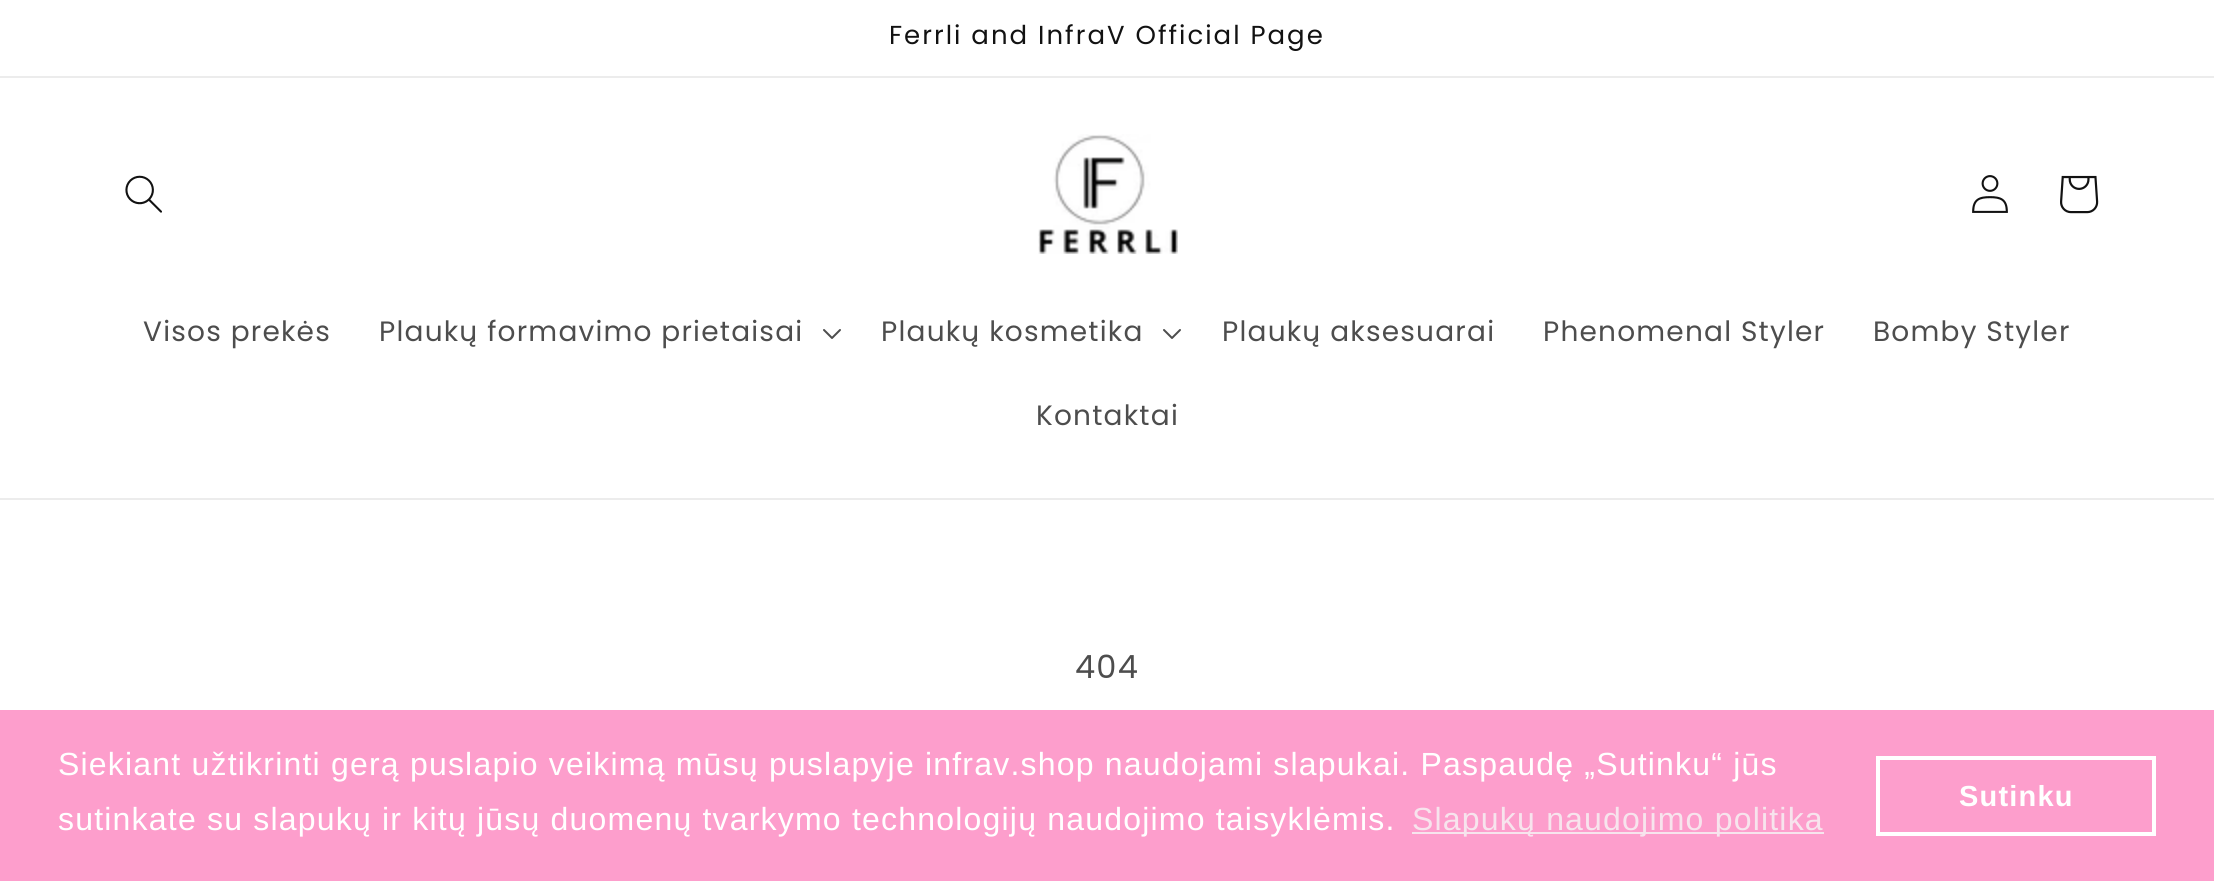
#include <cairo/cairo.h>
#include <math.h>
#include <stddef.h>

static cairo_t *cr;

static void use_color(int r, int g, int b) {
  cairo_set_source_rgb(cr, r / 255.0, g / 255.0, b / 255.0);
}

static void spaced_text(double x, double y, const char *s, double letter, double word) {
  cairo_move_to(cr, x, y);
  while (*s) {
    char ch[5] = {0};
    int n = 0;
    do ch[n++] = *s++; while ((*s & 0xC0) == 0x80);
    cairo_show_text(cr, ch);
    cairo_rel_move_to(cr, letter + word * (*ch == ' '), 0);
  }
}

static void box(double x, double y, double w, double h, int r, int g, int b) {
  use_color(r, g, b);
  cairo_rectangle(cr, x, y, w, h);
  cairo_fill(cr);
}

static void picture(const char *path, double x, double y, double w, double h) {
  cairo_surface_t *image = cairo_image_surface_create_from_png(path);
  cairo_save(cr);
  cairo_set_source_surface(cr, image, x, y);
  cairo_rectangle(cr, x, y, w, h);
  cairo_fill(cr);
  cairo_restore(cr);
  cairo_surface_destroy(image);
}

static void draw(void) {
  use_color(255, 255, 255);
  cairo_paint(cr);
  box(0, 76, 2214, 2, 236, 236, 236);
  box(0, 498, 2214, 2, 236, 236, 236);
  picture("img_01.png", 125, 175, 37, 38);
  picture("img_02.png", 1038, 134, 140, 120);
  picture("img_03.png", 1972, 175, 36, 38);
  picture("img_04.png", 2060, 175, 39, 39);
  picture("img_05.png", 823, 329, 18, 10);
  picture("img_05.png", 1163, 329, 18, 10);
  box(0, 710, 2214, 171, 253, 158, 204);
  box(1412, 832, 412, 2, 247, 228, 237);
  cairo_rectangle(cr, 1878, 758, 276, 76);
  use_color(255, 255, 255);
  cairo_set_line_width(cr, 4);
  cairo_stroke(cr);
  cairo_select_font_face(cr, "Poppins", CAIRO_FONT_SLANT_NORMAL, CAIRO_FONT_WEIGHT_NORMAL);
  cairo_set_font_size(cr, 26);
  use_color(18, 18, 18);
  spaced_text(889, 44, "Ferrli and InfraV Official Page", 2, 0);
  cairo_set_font_size(cr, 28);
  use_color(77, 77, 77);
  spaced_text(143, 341, "Visos prekės", 1.2, 0);
  spaced_text(379, 341, "Plaukų formavimo prietaisai", 1.2, 0);
  spaced_text(881, 341, "Plaukų kosmetika", 1.2, 0);
  spaced_text(1222, 341, "Plaukų aksesuarai", 1.2, 0);
  spaced_text(1543, 341, "Phenomenal Styler", 1.2, 0);
  spaced_text(1873, 341, "Bomby Styler", 1.2, 0);
  spaced_text(1036, 425, "Kontaktai", 1.2, 0);
  cairo_set_font_size(cr, 32);
  spaced_text(1075, 678, "404", 1.2, 0);
  cairo_select_font_face(cr, "Liberation Sans", CAIRO_FONT_SLANT_NORMAL, CAIRO_FONT_WEIGHT_NORMAL);
  use_color(255, 255, 255);
  spaced_text(58, 775, "Siekiant užtikrinti gerą puslapio veikimą mūsų puslapyje infrav.shop naudojami slapukai. Paspaudę „Sutinku“ jūs", 1.2, 0);
  spaced_text(58, 830, "sutinkate su slapukų ir kitų jūsų duomenų tvarkymo technologijų naudojimo taisyklėmis.", 1.2, 0);
  use_color(247, 228, 237);
  spaced_text(1412, 830, "Slapukų naudojimo politika", 1.2, 0);
  cairo_select_font_face(cr, "Liberation Sans", CAIRO_FONT_SLANT_NORMAL, CAIRO_FONT_WEIGHT_BOLD);
  cairo_set_font_size(cr, 29);
  use_color(255, 255, 255);
  spaced_text(1959, 806, "Sutinku", 1.2, 0);
}

int main(void) {
  cairo_surface_t *surface = cairo_image_surface_create(CAIRO_FORMAT_RGB24, 2214, 881);
  cr = cairo_create(surface);
  cairo_font_options_t *options = cairo_font_options_create();
  cairo_font_options_set_hint_metrics(options, CAIRO_HINT_METRICS_OFF);
  cairo_font_options_set_hint_style(options, CAIRO_HINT_STYLE_NONE);
  cairo_set_font_options(cr, options);
  cairo_set_miter_limit(cr, 4);
  draw();
  cairo_surface_write_to_png(surface, "out.png");
  cairo_font_options_destroy(options);
  cairo_destroy(cr);
  cairo_surface_destroy(surface);
  return 0;
}
